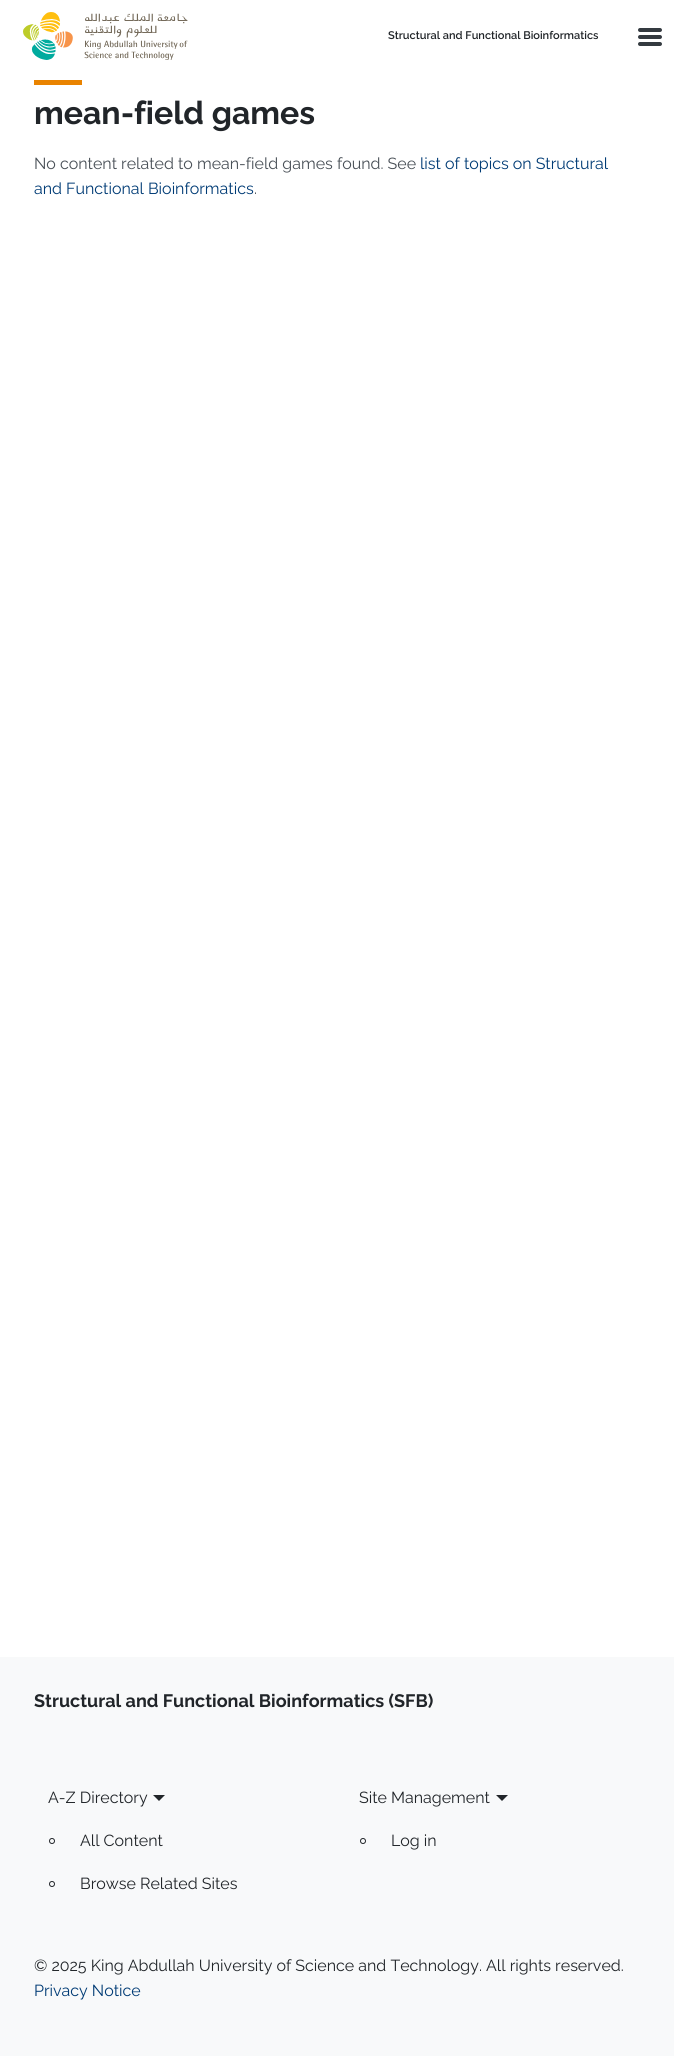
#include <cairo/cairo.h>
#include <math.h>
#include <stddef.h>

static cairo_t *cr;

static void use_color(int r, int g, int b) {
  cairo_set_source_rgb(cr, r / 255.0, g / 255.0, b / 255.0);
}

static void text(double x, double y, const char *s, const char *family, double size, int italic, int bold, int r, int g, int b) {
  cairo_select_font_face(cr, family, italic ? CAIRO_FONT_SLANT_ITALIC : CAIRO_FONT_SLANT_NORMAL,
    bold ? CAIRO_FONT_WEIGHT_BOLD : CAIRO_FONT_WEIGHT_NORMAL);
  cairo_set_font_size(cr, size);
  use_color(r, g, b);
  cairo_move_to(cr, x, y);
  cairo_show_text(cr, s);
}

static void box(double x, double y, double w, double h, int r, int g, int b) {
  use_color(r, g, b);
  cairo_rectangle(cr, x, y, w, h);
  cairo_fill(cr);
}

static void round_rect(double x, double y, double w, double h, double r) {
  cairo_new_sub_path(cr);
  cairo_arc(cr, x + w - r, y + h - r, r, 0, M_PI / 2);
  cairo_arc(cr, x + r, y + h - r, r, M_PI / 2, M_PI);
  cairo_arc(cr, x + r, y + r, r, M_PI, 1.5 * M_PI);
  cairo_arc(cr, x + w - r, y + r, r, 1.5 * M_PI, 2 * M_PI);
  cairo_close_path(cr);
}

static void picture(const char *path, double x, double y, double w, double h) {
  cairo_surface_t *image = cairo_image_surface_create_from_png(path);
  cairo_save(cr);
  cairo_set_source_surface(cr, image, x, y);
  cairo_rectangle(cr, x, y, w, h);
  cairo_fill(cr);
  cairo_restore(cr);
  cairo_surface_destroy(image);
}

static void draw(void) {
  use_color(255, 255, 255);
  cairo_paint(cr);
  picture("img_01.png", 23, 12, 165, 48);
  use_color(52, 58, 64);
  round_rect(638, 35, 24, 4, 2);
  cairo_fill(cr);
  round_rect(638, 28, 24, 4, 2);
  cairo_fill(cr);
  round_rect(638, 42, 24, 4, 2);
  cairo_fill(cr);
  box(34, 80, 48, 5, 233, 131, 0);
  box(0, 1657, 674, 399, 248, 249, 250);
  use_color(33, 37, 41);
  cairo_new_path(cr);
  cairo_move_to(cr, 153, 1795);
  cairo_line_to(cr, 165, 1795);
  cairo_line_to(cr, 159, 1801);
  cairo_close_path(cr);
  cairo_fill(cr);
  cairo_arc(cr, 52, 1841, 2.5, 0, 2 * M_PI);
  cairo_set_line_width(cr, 1);
  cairo_stroke(cr);
  cairo_arc(cr, 52, 1884, 2.5, 0, 2 * M_PI);
  cairo_stroke(cr);
  cairo_new_path(cr);
  cairo_move_to(cr, 496, 1795);
  cairo_line_to(cr, 508, 1795);
  cairo_line_to(cr, 502, 1801);
  cairo_close_path(cr);
  cairo_fill(cr);
  cairo_arc(cr, 363, 1841, 2.5, 0, 2 * M_PI);
  cairo_stroke(cr);
  text(388, 39, "Structural and Functional Bioinformatics", "Raleway SemiBold", 11, 0, 0, 33, 37, 41);
  text(34, 124, "mean-field games", "Raleway", 32, 0, 1, 33, 37, 41);
  text(34, 169, "No content related to mean-field games found. See", "Raleway", 16, 0, 0, 73, 80, 87);
  text(420, 169, "list of topics on Structural", "Raleway", 16, 0, 0, 0, 59, 117);
  text(34, 194, "and Functional Bioinformatics", "Raleway", 16, 0, 0, 0, 59, 117);
  text(254, 194, ".", "Raleway", 16, 0, 0, 73, 80, 87);
  text(34, 1707, "Structural and Functional Bioinformatics (SFB)", "Raleway", 18, 0, 1, 33, 37, 41);
  text(48, 1803, "A-Z Directory", "Raleway", 16, 0, 0, 33, 37, 41);
  text(80, 1846, "All Content", "Raleway", 16, 0, 0, 33, 37, 41);
  text(80, 1889, "Browse Related Sites", "Raleway", 16, 0, 0, 33, 37, 41);
  text(359, 1803, "Site Management", "Raleway", 16, 0, 0, 33, 37, 41);
  text(391, 1846, "Log in", "Raleway", 16, 0, 0, 33, 37, 41);
  text(34, 1971, "© 2025 King Abdullah University of Science and Technology. All rights reserved.", "Raleway", 16, 0, 0, 33, 37, 41);
  text(34, 1996, "Privacy Notice", "Raleway", 16, 0, 0, 0, 59, 117);
}

int main(void) {
  cairo_surface_t *surface = cairo_image_surface_create(CAIRO_FORMAT_RGB24, 674, 2056);
  cr = cairo_create(surface);
  cairo_font_options_t *options = cairo_font_options_create();
  cairo_font_options_set_hint_metrics(options, CAIRO_HINT_METRICS_OFF);
  cairo_font_options_set_hint_style(options, CAIRO_HINT_STYLE_NONE);
  cairo_set_font_options(cr, options);
  cairo_set_miter_limit(cr, 4);
  draw();
  cairo_surface_write_to_png(surface, "out.png");
  cairo_font_options_destroy(options);
  cairo_destroy(cr);
  cairo_surface_destroy(surface);
  return 0;
}
